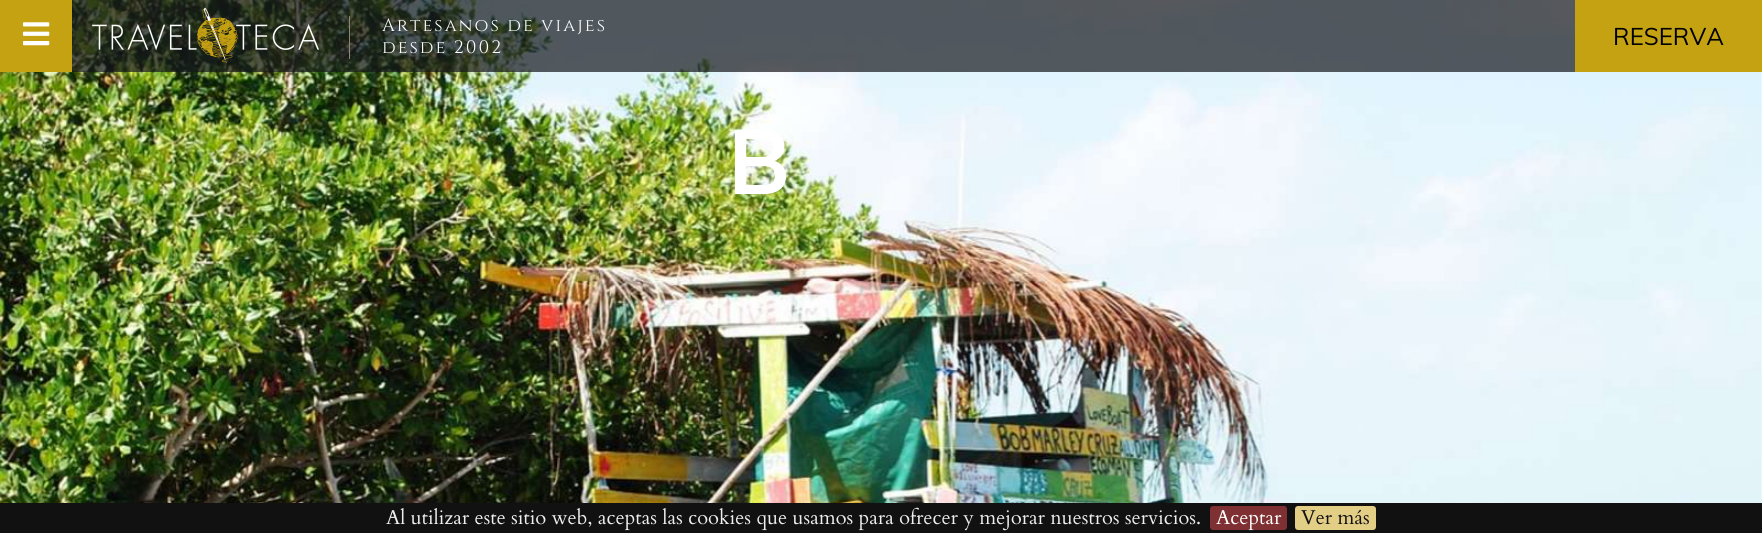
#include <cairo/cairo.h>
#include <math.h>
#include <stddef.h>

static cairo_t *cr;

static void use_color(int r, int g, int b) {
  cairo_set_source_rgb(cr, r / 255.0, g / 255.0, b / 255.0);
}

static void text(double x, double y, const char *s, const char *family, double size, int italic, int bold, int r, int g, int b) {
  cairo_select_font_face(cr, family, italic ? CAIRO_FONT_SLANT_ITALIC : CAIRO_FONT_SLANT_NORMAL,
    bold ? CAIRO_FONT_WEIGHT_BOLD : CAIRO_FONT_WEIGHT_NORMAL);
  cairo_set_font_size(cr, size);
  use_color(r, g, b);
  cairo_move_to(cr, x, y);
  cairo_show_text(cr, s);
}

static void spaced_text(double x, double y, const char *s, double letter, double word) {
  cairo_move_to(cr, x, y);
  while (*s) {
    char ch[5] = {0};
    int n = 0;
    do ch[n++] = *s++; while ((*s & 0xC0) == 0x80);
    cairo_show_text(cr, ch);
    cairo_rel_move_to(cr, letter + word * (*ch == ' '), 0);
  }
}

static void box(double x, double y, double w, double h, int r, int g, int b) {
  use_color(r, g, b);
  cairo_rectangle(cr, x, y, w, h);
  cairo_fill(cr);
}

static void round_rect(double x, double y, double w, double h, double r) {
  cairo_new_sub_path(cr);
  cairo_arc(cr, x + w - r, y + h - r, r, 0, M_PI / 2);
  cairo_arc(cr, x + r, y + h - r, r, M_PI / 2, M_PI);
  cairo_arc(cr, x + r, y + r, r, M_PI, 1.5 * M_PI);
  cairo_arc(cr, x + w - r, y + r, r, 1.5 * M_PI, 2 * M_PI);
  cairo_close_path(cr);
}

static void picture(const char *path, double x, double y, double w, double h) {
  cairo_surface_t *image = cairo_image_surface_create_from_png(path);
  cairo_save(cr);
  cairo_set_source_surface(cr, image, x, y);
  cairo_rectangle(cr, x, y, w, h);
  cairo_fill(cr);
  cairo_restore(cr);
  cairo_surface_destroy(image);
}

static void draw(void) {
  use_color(255, 255, 255);
  cairo_paint(cr);
  picture("img_03.png", 0, 0, 1762, 503);
  cairo_set_source_rgba(cr, 0.082, 0.086, 0.106, 0.7);
  cairo_rectangle(cr, 72, 0, 1503, 72);
  cairo_fill(cr);
  box(0, 0, 72, 72, 197, 162, 18);
  picture("img_01.png", 23, 22, 27, 24);
  picture("img_02.png", 92, 8, 227, 55);
  box(349, 16, 1, 43, 141, 135, 115);
  box(1575, 0, 187, 72, 197, 162, 18);
  box(0, 503, 1762, 30, 17, 17, 17);
  picture("img_04.png", 386, 507, 814, 24);
  use_color(127, 48, 50);
  round_rect(1210, 506, 77, 24, 3);
  cairo_fill(cr);
  picture("img_05.png", 1216, 510, 66, 21);
  use_color(227, 206, 134);
  round_rect(1295, 506, 81, 24, 3);
  cairo_fill(cr);
  picture("img_06.png", 1301, 509, 68, 16);
  cairo_select_font_face(cr, "Cinzel", CAIRO_FONT_SLANT_NORMAL, CAIRO_FONT_WEIGHT_NORMAL);
  cairo_set_font_size(cr, 18);
  use_color(255, 255, 255);
  spaced_text(382, 31, "Artesanos de viajes", 2, 0);
  spaced_text(382, 53, "desde 2002", 2, 0);
  text(1613, 45, "RESERVA", "Muli", 24, 0, 0, 0, 0, 0);
  text(728, 194, "B", "Muli", 90, 0, 1, 255, 255, 255);
}

int main(void) {
  cairo_surface_t *surface = cairo_image_surface_create(CAIRO_FORMAT_RGB24, 1762, 533);
  cr = cairo_create(surface);
  cairo_font_options_t *options = cairo_font_options_create();
  cairo_font_options_set_hint_metrics(options, CAIRO_HINT_METRICS_OFF);
  cairo_font_options_set_hint_style(options, CAIRO_HINT_STYLE_NONE);
  cairo_set_font_options(cr, options);
  cairo_set_miter_limit(cr, 4);
  draw();
  cairo_surface_write_to_png(surface, "out.png");
  cairo_font_options_destroy(options);
  cairo_destroy(cr);
  cairo_surface_destroy(surface);
  return 0;
}
